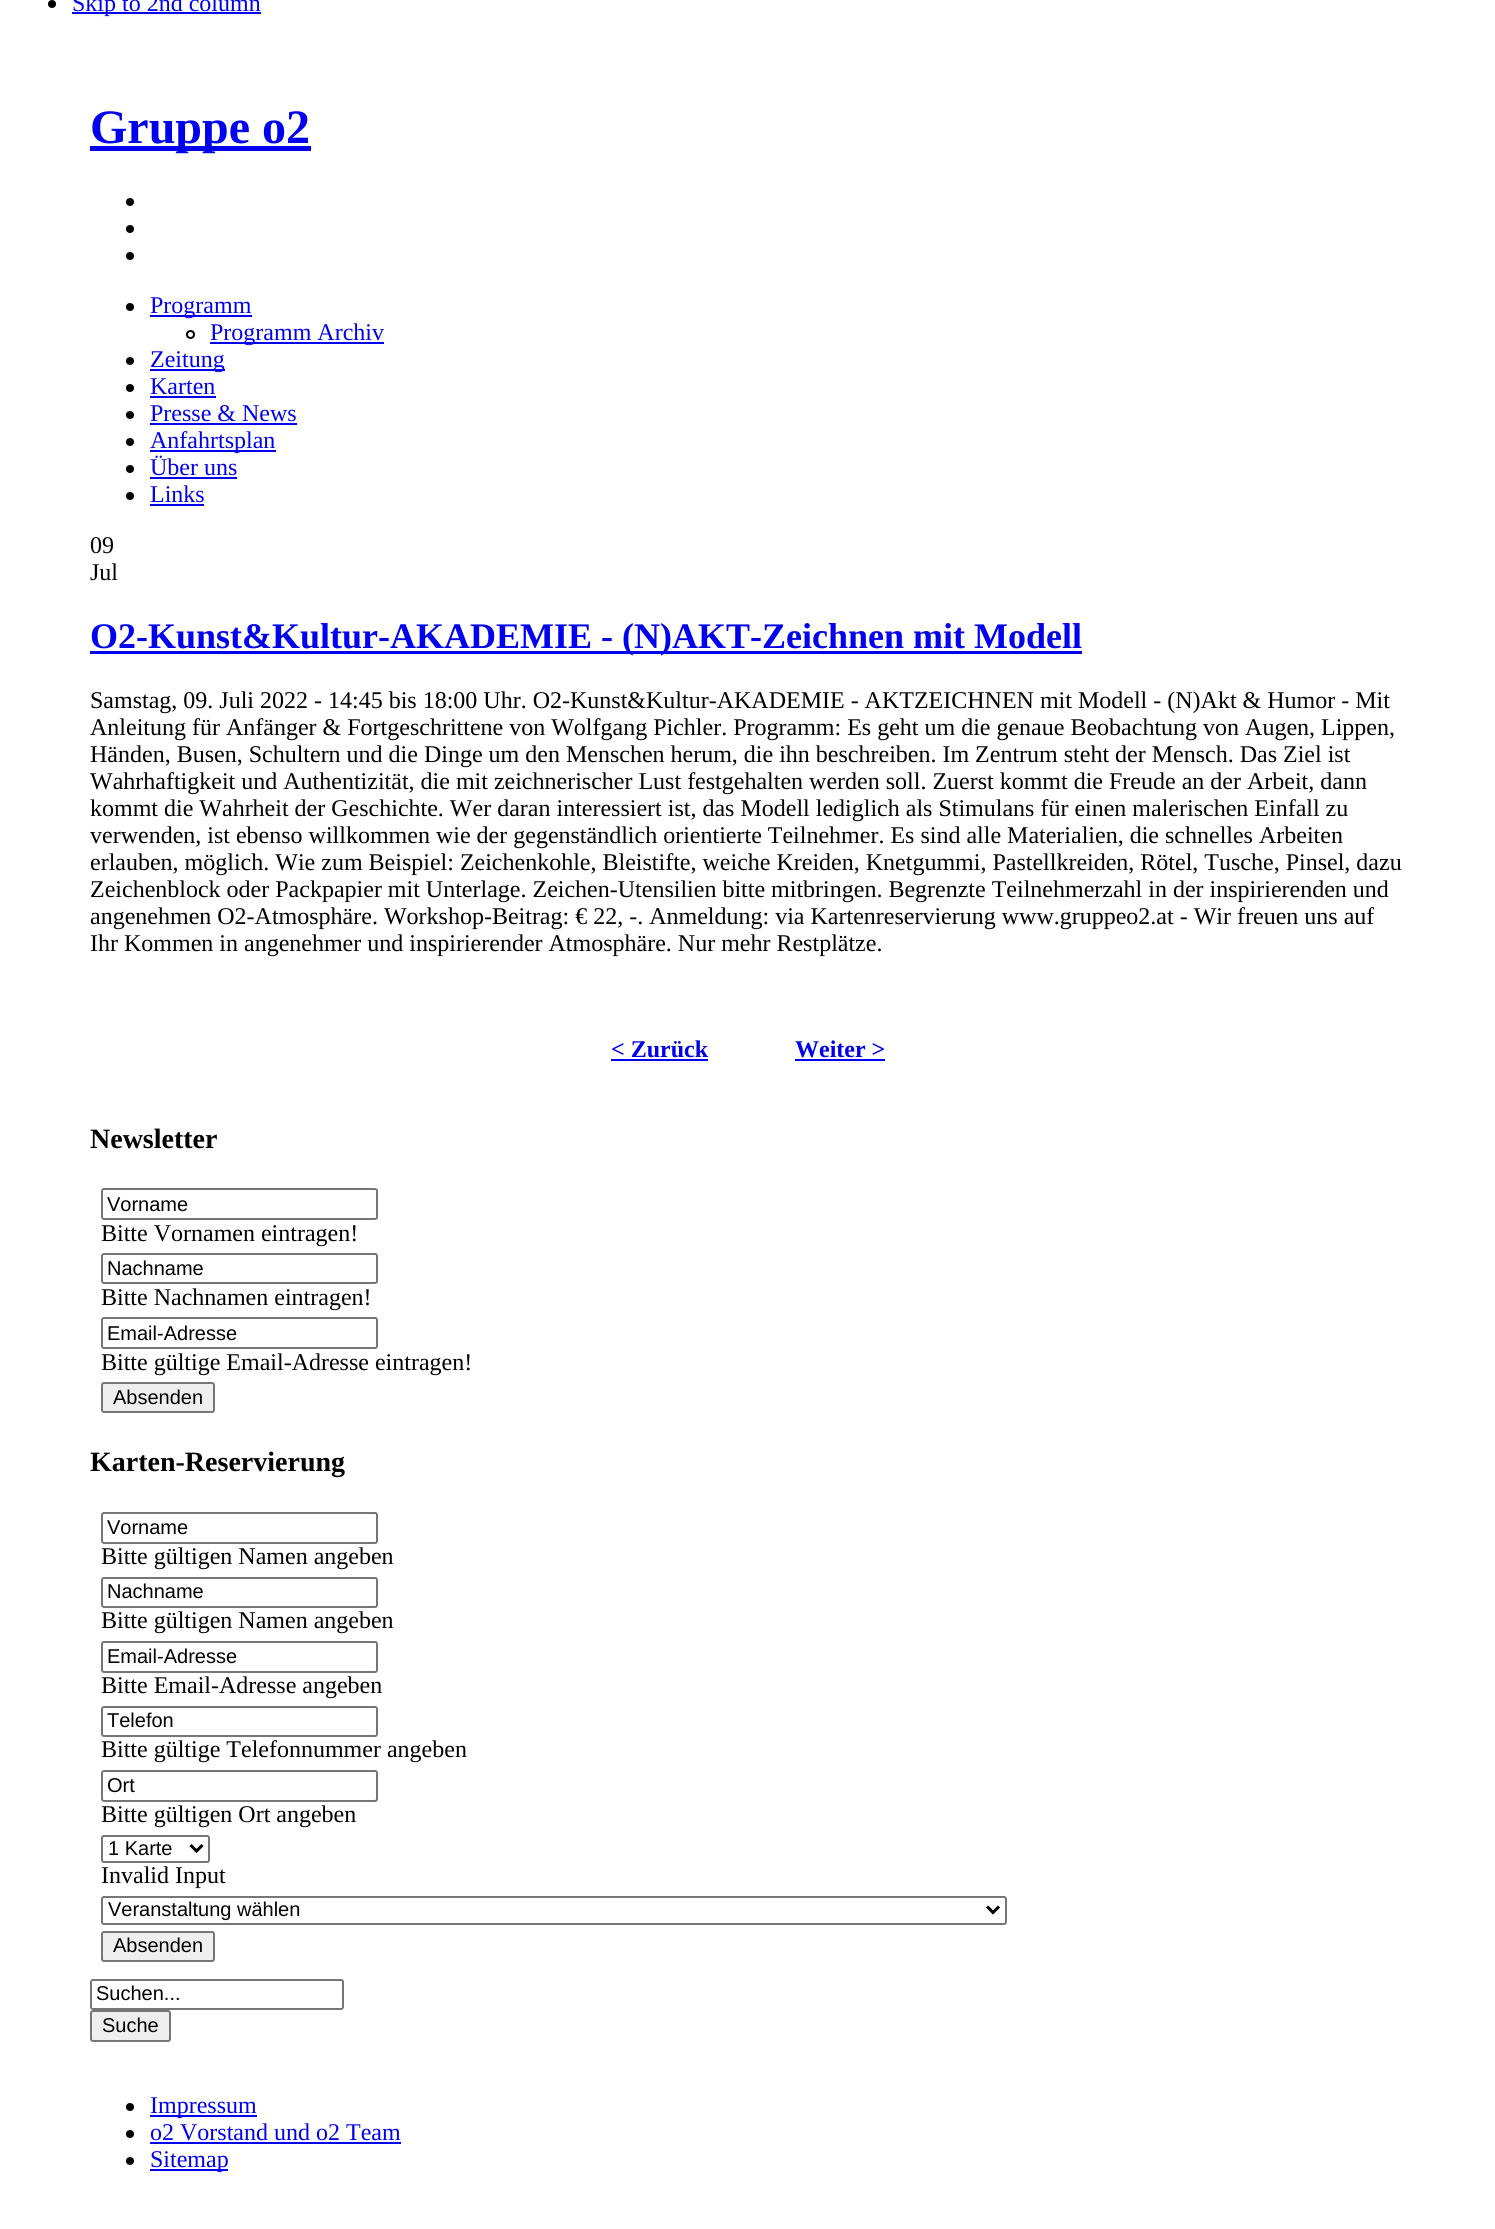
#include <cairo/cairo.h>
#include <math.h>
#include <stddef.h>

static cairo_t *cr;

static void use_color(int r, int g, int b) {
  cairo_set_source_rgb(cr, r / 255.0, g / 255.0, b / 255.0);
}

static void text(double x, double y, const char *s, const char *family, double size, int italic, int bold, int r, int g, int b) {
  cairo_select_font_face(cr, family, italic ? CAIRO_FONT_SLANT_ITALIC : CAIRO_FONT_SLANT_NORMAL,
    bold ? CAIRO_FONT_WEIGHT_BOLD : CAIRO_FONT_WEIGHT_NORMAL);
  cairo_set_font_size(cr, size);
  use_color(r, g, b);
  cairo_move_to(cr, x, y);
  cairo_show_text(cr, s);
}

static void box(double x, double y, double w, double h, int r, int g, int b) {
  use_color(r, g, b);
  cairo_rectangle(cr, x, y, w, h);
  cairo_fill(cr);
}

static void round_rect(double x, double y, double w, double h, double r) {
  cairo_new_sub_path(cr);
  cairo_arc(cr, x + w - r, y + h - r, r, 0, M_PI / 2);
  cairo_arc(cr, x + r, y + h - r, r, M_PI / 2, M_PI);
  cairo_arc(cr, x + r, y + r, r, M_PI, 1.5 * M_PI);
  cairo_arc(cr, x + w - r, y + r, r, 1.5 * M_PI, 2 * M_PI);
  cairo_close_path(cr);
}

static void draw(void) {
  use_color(255, 255, 255);
  cairo_paint(cr);
  use_color(0, 0, 0);
  cairo_arc(cr, 52, 4, 4, 0, 2 * M_PI);
  cairo_fill(cr);
  box(72, 12, 189, 2, 0, 0, 238);
  box(90, 146, 221, 5, 0, 0, 238);
  use_color(0, 0, 0);
  cairo_arc(cr, 130, 202, 4, 0, 2 * M_PI);
  cairo_fill(cr);
  cairo_arc(cr, 130, 229, 4, 0, 2 * M_PI);
  cairo_fill(cr);
  cairo_arc(cr, 130, 256, 4, 0, 2 * M_PI);
  cairo_fill(cr);
  cairo_arc(cr, 130, 307, 4, 0, 2 * M_PI);
  cairo_fill(cr);
  box(150, 315, 102, 2, 0, 0, 238);
  cairo_arc(cr, 190.5, 334.5, 3.5, 0, 2 * M_PI);
  use_color(0, 0, 0);
  cairo_stroke(cr);
  box(210, 342, 174, 2, 0, 0, 238);
  use_color(0, 0, 0);
  cairo_arc(cr, 130, 361, 4, 0, 2 * M_PI);
  cairo_fill(cr);
  box(150, 369, 75, 2, 0, 0, 238);
  use_color(0, 0, 0);
  cairo_arc(cr, 130, 388, 4, 0, 2 * M_PI);
  cairo_fill(cr);
  box(150, 396, 66, 2, 0, 0, 238);
  use_color(0, 0, 0);
  cairo_arc(cr, 130, 415, 4, 0, 2 * M_PI);
  cairo_fill(cr);
  box(150, 423, 147, 2, 0, 0, 238);
  use_color(0, 0, 0);
  cairo_arc(cr, 130, 442, 4, 0, 2 * M_PI);
  cairo_fill(cr);
  box(150, 450, 126, 2, 0, 0, 238);
  use_color(0, 0, 0);
  cairo_arc(cr, 130, 469, 4, 0, 2 * M_PI);
  cairo_fill(cr);
  box(150, 477, 87, 2, 0, 0, 238);
  use_color(0, 0, 0);
  cairo_arc(cr, 130, 496, 4, 0, 2 * M_PI);
  cairo_fill(cr);
  box(150, 504, 54, 2, 0, 0, 238);
  box(90, 651, 992, 3, 0, 0, 238);
  box(611, 1059, 97, 2, 0, 0, 238);
  box(795, 1059, 90, 2, 0, 0, 238);
  round_rect(102, 1189, 275, 30, 2);
  use_color(118, 118, 118);
  cairo_stroke(cr);
  round_rect(102, 1254, 275, 29, 2);
  cairo_stroke(cr);
  round_rect(102, 1318, 275, 30, 2);
  cairo_stroke(cr);
  use_color(239, 239, 239);
  round_rect(102, 1383, 112, 29, 2);
  cairo_fill_preserve(cr);
  use_color(118, 118, 118);
  cairo_stroke(cr);
  round_rect(102, 1513, 275, 30, 2);
  cairo_stroke(cr);
  round_rect(102, 1578, 275, 29, 2);
  cairo_stroke(cr);
  round_rect(102, 1642, 275, 30, 2);
  cairo_stroke(cr);
  round_rect(102, 1707, 275, 29, 2);
  cairo_stroke(cr);
  round_rect(102, 1771, 275, 30, 2);
  cairo_stroke(cr);
  round_rect(102, 1836, 107, 26, 2);
  cairo_stroke(cr);
  cairo_new_path(cr);
  cairo_move_to(cr, 190.5, 1845);
  cairo_line_to(cr, 196.5, 1851);
  cairo_line_to(cr, 202.5, 1845);
  use_color(0, 0, 0);
  cairo_set_line_width(cr, 3);
  cairo_stroke(cr);
  round_rect(102, 1897, 904, 27, 2);
  use_color(118, 118, 118);
  cairo_set_line_width(cr, 2);
  cairo_stroke(cr);
  cairo_new_path(cr);
  cairo_move_to(cr, 987, 1906.5);
  cairo_line_to(cr, 993, 1912.5);
  cairo_line_to(cr, 999, 1906.5);
  use_color(0, 0, 0);
  cairo_set_line_width(cr, 3);
  cairo_stroke(cr);
  use_color(239, 239, 239);
  round_rect(102, 1932, 112, 29, 2);
  cairo_fill_preserve(cr);
  use_color(118, 118, 118);
  cairo_set_line_width(cr, 2);
  cairo_stroke(cr);
  round_rect(91, 1980, 252, 29, 2);
  cairo_stroke(cr);
  use_color(239, 239, 239);
  round_rect(91, 2011, 79, 30, 2);
  cairo_fill_preserve(cr);
  use_color(118, 118, 118);
  cairo_stroke(cr);
  use_color(0, 0, 0);
  cairo_arc(cr, 130, 2107, 4, 0, 2 * M_PI);
  cairo_fill(cr);
  box(150, 2115, 107, 2, 0, 0, 238);
  use_color(0, 0, 0);
  cairo_arc(cr, 130, 2134, 4, 0, 2 * M_PI);
  cairo_fill(cr);
  box(150, 2142, 251, 2, 0, 0, 238);
  use_color(0, 0, 0);
  cairo_arc(cr, 130, 2161, 4, 0, 2 * M_PI);
  cairo_fill(cr);
  box(150, 2169, 78, 2, 0, 0, 238);
  text(72, 11, "Skip to 2nd column", "Liberation Serif", 24, 0, 0, 0, 0, 238);
  text(90, 143, "Gruppe o2", "Liberation Serif", 48, 0, 1, 0, 0, 238);
  text(150, 313, "Programm", "Liberation Serif", 24, 0, 0, 0, 0, 238);
  text(210, 340, "Programm Archiv", "Liberation Serif", 24, 0, 0, 0, 0, 238);
  text(150, 367, "Zeitung", "Liberation Serif", 24, 0, 0, 0, 0, 238);
  text(150, 394, "Karten", "Liberation Serif", 24, 0, 0, 0, 0, 238);
  text(150, 421, "Presse & News", "Liberation Serif", 24, 0, 0, 0, 0, 238);
  text(150, 448, "Anfahrtsplan", "Liberation Serif", 24, 0, 0, 0, 0, 238);
  text(150, 475, "Über uns", "Liberation Serif", 24, 0, 0, 0, 0, 238);
  text(150, 502, "Links", "Liberation Serif", 24, 0, 0, 0, 0, 238);
  text(90, 553, "09", "Liberation Serif", 24, 0, 0, 0, 0, 0);
  text(90, 580, "Jul", "Liberation Serif", 24, 0, 0, 0, 0, 0);
  text(90, 648, "O2-Kunst&Kultur-AKADEMIE - (N)AKT-Zeichnen mit Modell", "Liberation Serif", 36, 0, 1, 0, 0, 238);
  text(90, 708, "Samstag, 09. Juli 2022 - 14:45 bis 18:00 Uhr. O2-Kunst&Kultur-AKADEMIE - AKTZEICHNEN mit Modell - (N)Akt & Humor - Mit", "Liberation Serif", 24, 0, 0, 0, 0, 0);
  text(90, 735, "Anleitung für Anfänger & Fortgeschrittene von Wolfgang Pichler. Programm: Es geht um die genaue Beobachtung von Augen, Lippen,", "Liberation Serif", 24, 0, 0, 0, 0, 0);
  text(90, 762, "Händen, Busen, Schultern und die Dinge um den Menschen herum, die ihn beschreiben. Im Zentrum steht der Mensch. Das Ziel ist", "Liberation Serif", 24, 0, 0, 0, 0, 0);
  text(90, 789, "Wahrhaftigkeit und Authentizität, die mit zeichnerischer Lust festgehalten werden soll. Zuerst kommt die Freude an der Arbeit, dann", "Liberation Serif", 24, 0, 0, 0, 0, 0);
  text(90, 816, "kommt die Wahrheit der Geschichte. Wer daran interessiert ist, das Modell lediglich als Stimulans für einen malerischen Einfall zu", "Liberation Serif", 24, 0, 0, 0, 0, 0);
  text(90, 843, "verwenden, ist ebenso willkommen wie der gegenständlich orientierte Teilnehmer. Es sind alle Materialien, die schnelles Arbeiten", "Liberation Serif", 24, 0, 0, 0, 0, 0);
  text(90, 870, "erlauben, möglich. Wie zum Beispiel: Zeichenkohle, Bleistifte, weiche Kreiden, Knetgummi, Pastellkreiden, Rötel, Tusche, Pinsel, dazu", "Liberation Serif", 24, 0, 0, 0, 0, 0);
  text(90, 897, "Zeichenblock oder Packpapier mit Unterlage. Zeichen-Utensilien bitte mitbringen. Begrenzte Teilnehmerzahl in der inspirierenden und", "Liberation Serif", 24, 0, 0, 0, 0, 0);
  text(90, 924, "angenehmen O2-Atmosphäre. Workshop-Beitrag: € 22, -. Anmeldung: via Kartenreservierung www.gruppeo2.at - Wir freuen uns auf", "Liberation Serif", 24, 0, 0, 0, 0, 0);
  text(90, 951, "Ihr Kommen in angenehmer und inspirierender Atmosphäre. Nur mehr Restplätze.", "Liberation Serif", 24, 0, 0, 0, 0, 0);
  text(611, 1057, "< Zurück", "Liberation Serif", 24, 0, 1, 0, 0, 238);
  text(795, 1057, "Weiter >", "Liberation Serif", 24, 0, 1, 0, 0, 238);
  text(90, 1148, "Newsletter", "Liberation Serif", 28, 0, 1, 0, 0, 0);
  text(107, 1211, "Vorname", "Liberation Sans", 20, 0, 0, 0, 0, 0);
  text(101, 1241, "Bitte Vornamen eintragen!", "Liberation Serif", 24, 0, 0, 0, 0, 0);
  text(107, 1275, "Nachname", "Liberation Sans", 20, 0, 0, 0, 0, 0);
  text(101, 1305, "Bitte Nachnamen eintragen!", "Liberation Serif", 24, 0, 0, 0, 0, 0);
  text(107, 1340, "Email-Adresse", "Liberation Sans", 20, 0, 0, 0, 0, 0);
  text(101, 1370, "Bitte gültige Email-Adresse eintragen!", "Liberation Serif", 24, 0, 0, 0, 0, 0);
  text(113, 1404, "Absenden", "Liberation Sans", 20, 0, 0, 0, 0, 0);
  text(90, 1471, "Karten-Reservierung", "Liberation Serif", 28, 0, 1, 0, 0, 0);
  text(107, 1534, "Vorname", "Liberation Sans", 20, 0, 0, 0, 0, 0);
  text(101, 1564, "Bitte gültigen Namen angeben", "Liberation Serif", 24, 0, 0, 0, 0, 0);
  text(107, 1598, "Nachname", "Liberation Sans", 20, 0, 0, 0, 0, 0);
  text(101, 1628, "Bitte gültigen Namen angeben", "Liberation Serif", 24, 0, 0, 0, 0, 0);
  text(107, 1663, "Email-Adresse", "Liberation Sans", 20, 0, 0, 0, 0, 0);
  text(101, 1693, "Bitte Email-Adresse angeben", "Liberation Serif", 24, 0, 0, 0, 0, 0);
  text(107, 1727, "Telefon", "Liberation Sans", 20, 0, 0, 0, 0, 0);
  text(101, 1757, "Bitte gültige Telefonnummer angeben", "Liberation Serif", 24, 0, 0, 0, 0, 0);
  text(107, 1792, "Ort", "Liberation Sans", 20, 0, 0, 0, 0, 0);
  text(101, 1822, "Bitte gültigen Ort angeben", "Liberation Serif", 24, 0, 0, 0, 0, 0);
  text(108, 1855, "1 Karte", "Liberation Sans", 20, 0, 0, 0, 0, 0);
  text(101, 1883, "Invalid Input", "Liberation Serif", 24, 0, 0, 0, 0, 0);
  text(108, 1916, "Veranstaltung wählen", "Liberation Sans", 20, 0, 0, 0, 0, 0);
  text(113, 1952, "Absenden", "Liberation Sans", 20, 0, 0, 0, 0, 0);
  text(96, 2000, "Suchen...", "Liberation Sans", 20, 0, 0, 0, 0, 0);
  text(102, 2032, "Suche", "Liberation Sans", 20, 0, 0, 0, 0, 0);
  text(150, 2113, "Impressum", "Liberation Serif", 24, 0, 0, 0, 0, 238);
  text(150, 2140, "o2 Vorstand und o2 Team", "Liberation Serif", 24, 0, 0, 0, 0, 238);
  text(150, 2167, "Sitemap", "Liberation Serif", 24, 0, 0, 0, 0, 238);
}

int main(void) {
  cairo_surface_t *surface = cairo_image_surface_create(CAIRO_FORMAT_RGB24, 1495, 2229);
  cr = cairo_create(surface);
  cairo_font_options_t *options = cairo_font_options_create();
  cairo_font_options_set_hint_metrics(options, CAIRO_HINT_METRICS_OFF);
  cairo_font_options_set_hint_style(options, CAIRO_HINT_STYLE_NONE);
  cairo_set_font_options(cr, options);
  cairo_set_miter_limit(cr, 4);
  draw();
  cairo_surface_write_to_png(surface, "out.png");
  cairo_font_options_destroy(options);
  cairo_destroy(cr);
  cairo_surface_destroy(surface);
  return 0;
}
